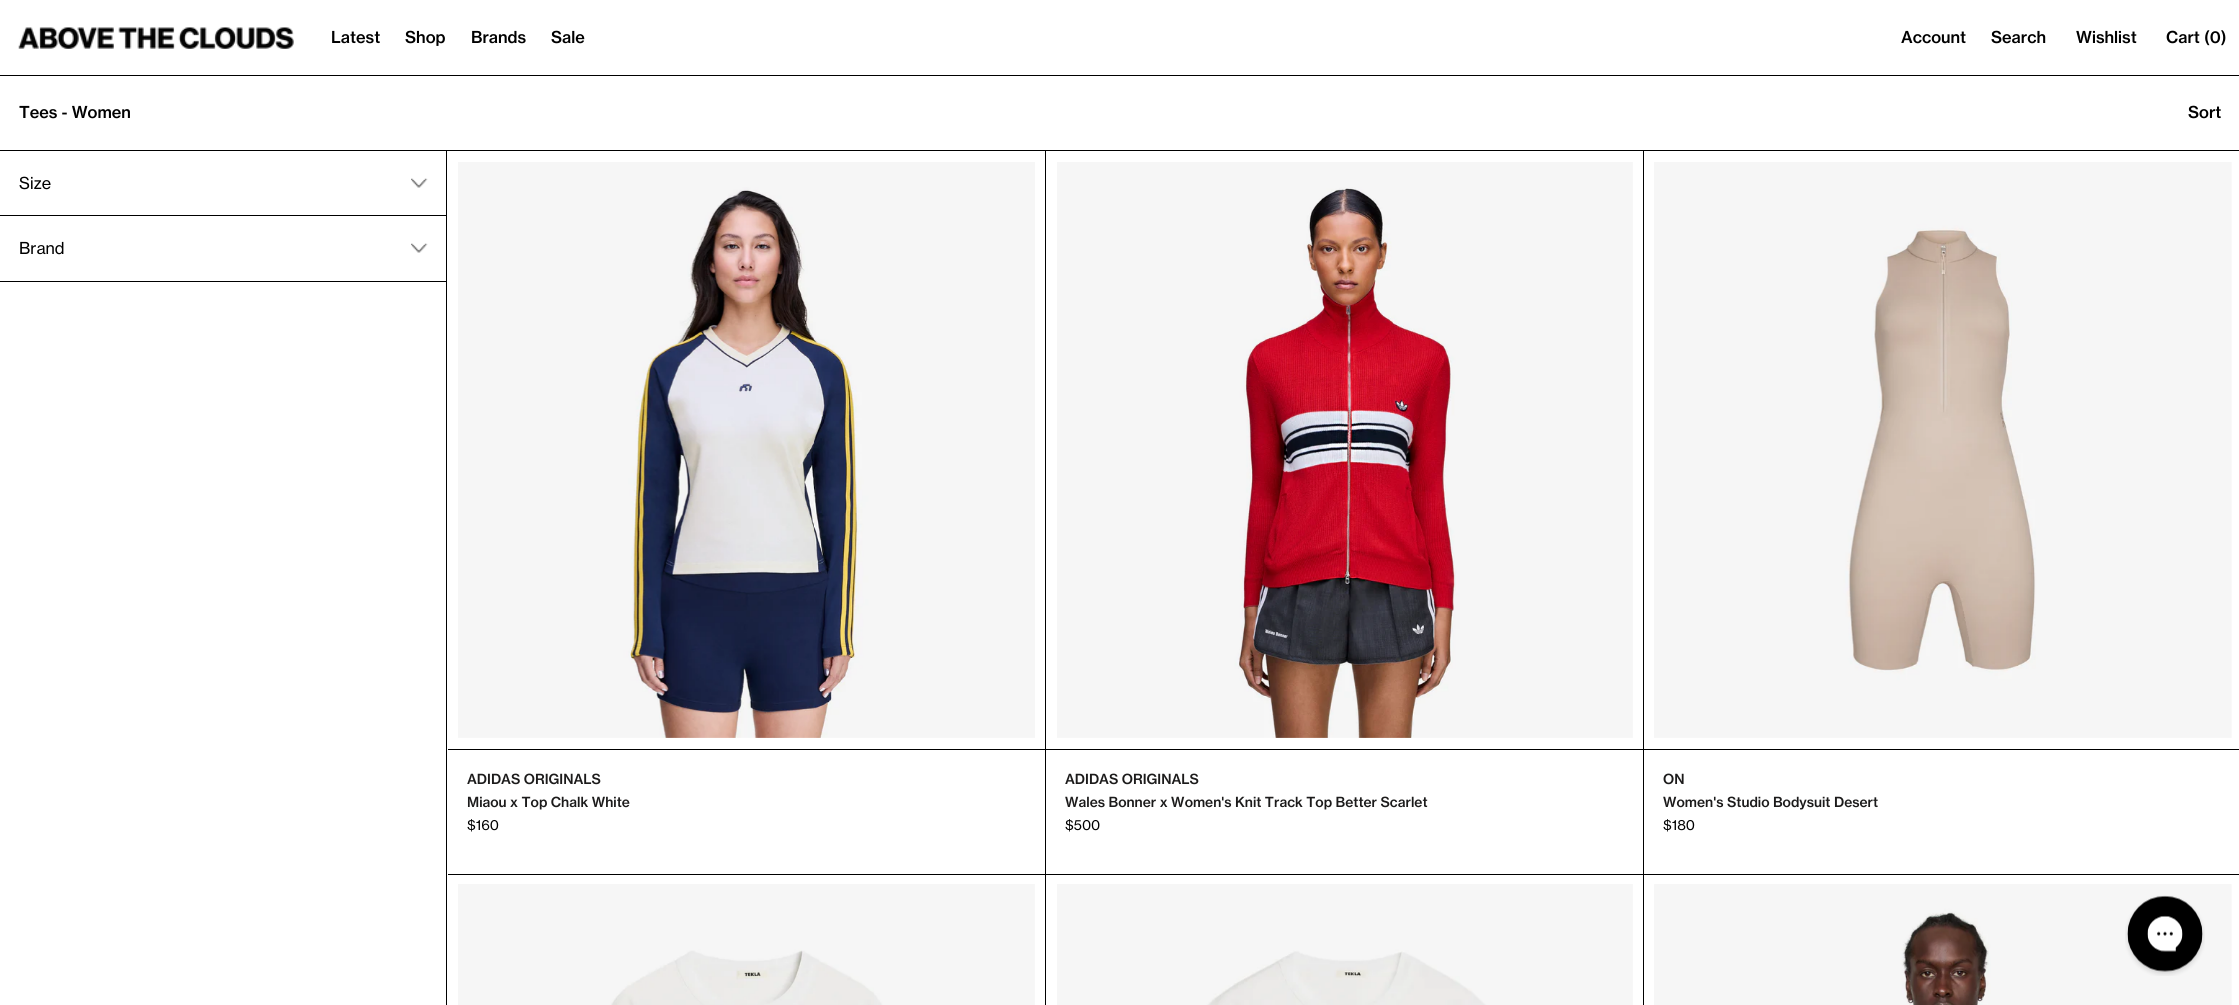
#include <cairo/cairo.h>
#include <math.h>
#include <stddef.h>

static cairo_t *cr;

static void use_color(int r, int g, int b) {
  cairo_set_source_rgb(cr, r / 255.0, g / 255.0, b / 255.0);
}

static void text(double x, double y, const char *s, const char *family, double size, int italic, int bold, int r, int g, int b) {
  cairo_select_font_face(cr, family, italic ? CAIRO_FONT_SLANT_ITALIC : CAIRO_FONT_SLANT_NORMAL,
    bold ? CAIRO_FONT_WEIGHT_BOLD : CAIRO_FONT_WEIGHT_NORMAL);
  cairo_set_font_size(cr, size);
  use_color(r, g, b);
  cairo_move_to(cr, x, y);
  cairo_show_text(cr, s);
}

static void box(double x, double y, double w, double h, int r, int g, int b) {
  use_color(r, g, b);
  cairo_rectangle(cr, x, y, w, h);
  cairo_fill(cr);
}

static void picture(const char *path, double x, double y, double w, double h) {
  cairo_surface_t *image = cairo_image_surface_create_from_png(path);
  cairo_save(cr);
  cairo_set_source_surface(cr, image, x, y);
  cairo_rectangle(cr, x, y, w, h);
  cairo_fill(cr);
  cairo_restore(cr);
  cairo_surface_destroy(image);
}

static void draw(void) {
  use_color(255, 255, 255);
  cairo_paint(cr);
  box(0, 75, 2239, 1, 0, 0, 0);
  picture("img_01.png", 18, 27, 276, 22);
  box(0, 150, 2239, 1, 0, 0, 0);
  box(446, 151, 1, 854, 0, 0, 0);
  picture("img_02.png", 411, 178, 17, 10);
  box(0, 215, 446, 1, 0, 0, 0);
  picture("img_02.png", 411, 243, 17, 10);
  box(0, 281, 446, 1, 0, 0, 0);
  box(1045, 151, 1, 854, 0, 0, 0);
  box(448, 874, 598, 1, 0, 0, 0);
  picture("img_03.png", 458, 162, 577, 576);
  box(448, 749, 597, 1, 0, 0, 0);
  box(1643, 151, 1, 854, 0, 0, 0);
  box(1046, 874, 1193, 1, 0, 0, 0);
  picture("img_04.png", 1057, 162, 576, 576);
  box(1046, 749, 597, 1, 0, 0, 0);
  picture("img_05.png", 1654, 162, 578, 576);
  box(1644, 749, 595, 1, 0, 0, 0);
  picture("img_06.png", 458, 884, 577, 121);
  picture("img_07.png", 1057, 884, 576, 121);
  picture("img_08.png", 1654, 884, 578, 121);
  picture("img_09.png", 2125, 895, 80, 81);
  text(331, 43, "Latest", "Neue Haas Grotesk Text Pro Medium", 16.25, 0, 0, 0, 0, 0);
  text(405, 43, "Shop", "Neue Haas Grotesk Text Pro Medium", 16.25, 0, 0, 0, 0, 0);
  text(471, 43, "Brands", "Neue Haas Grotesk Text Pro Medium", 16.25, 0, 0, 0, 0, 0);
  text(551, 43, "Sale", "Neue Haas Grotesk Text Pro Medium", 16.25, 0, 0, 0, 0, 0);
  text(1901, 43, "Account", "Neue Haas Grotesk Text Pro Medium", 16.25, 0, 0, 0, 0, 0);
  text(1991, 43, "Search", "Neue Haas Grotesk Text Pro Medium", 16.25, 0, 0, 0, 0, 0);
  text(2076, 43, "Wishlist", "Neue Haas Grotesk Text Pro Medium", 16.25, 0, 0, 0, 0, 0);
  text(2166, 43, "Cart (0)", "Neue Haas Grotesk Text Pro Medium", 16.25, 0, 0, 0, 0, 0);
  text(19, 118, "Tees - Women", "Neue Haas Grotesk Text Pro Medium", 16.25, 0, 0, 0, 0, 0);
  text(2188, 118, "Sort", "Neue Haas Grotesk Text Pro Medium", 16.25, 0, 0, 0, 0, 0);
  text(19, 189, "Size", "Neue Haas Grotesk Text Pro", 16.25, 0, 0, 0, 0, 0);
  text(19, 254, "Brand", "Neue Haas Grotesk Text Pro", 16.25, 0, 0, 0, 0, 0);
  text(467, 784, "ADIDAS ORIGINALS", "Neue Haas Grotesk Text Pro Medium", 13.75, 0, 0, 28, 27, 27);
  text(467, 807, "Miaou x Top Chalk White", "Neue Haas Grotesk Text Pro Medium", 13.75, 0, 0, 28, 27, 27);
  text(467, 830, "$160", "Neue Haas Grotesk Text Pro", 13.75, 0, 0, 0, 0, 0);
  text(1065, 784, "ADIDAS ORIGINALS", "Neue Haas Grotesk Text Pro Medium", 13.75, 0, 0, 28, 27, 27);
  text(1065, 807, "Wales Bonner x Women's Knit Track Top Better Scarlet", "Neue Haas Grotesk Text Pro Medium", 13.75, 0, 0, 28, 27, 27);
  text(1065, 830, "$500", "Neue Haas Grotesk Text Pro", 13.75, 0, 0, 0, 0, 0);
  text(1663, 784, "ON", "Neue Haas Grotesk Text Pro Medium", 13.75, 0, 0, 28, 27, 27);
  text(1663, 807, "Women's Studio Bodysuit Desert", "Neue Haas Grotesk Text Pro Medium", 13.75, 0, 0, 28, 27, 27);
  text(1663, 830, "$180", "Neue Haas Grotesk Text Pro", 13.75, 0, 0, 0, 0, 0);
}

int main(void) {
  cairo_surface_t *surface = cairo_image_surface_create(CAIRO_FORMAT_RGB24, 2239, 1005);
  cr = cairo_create(surface);
  cairo_font_options_t *options = cairo_font_options_create();
  cairo_font_options_set_hint_metrics(options, CAIRO_HINT_METRICS_OFF);
  cairo_font_options_set_hint_style(options, CAIRO_HINT_STYLE_NONE);
  cairo_set_font_options(cr, options);
  cairo_set_miter_limit(cr, 4);
  draw();
  cairo_surface_write_to_png(surface, "out.png");
  cairo_font_options_destroy(options);
  cairo_destroy(cr);
  cairo_surface_destroy(surface);
  return 0;
}
